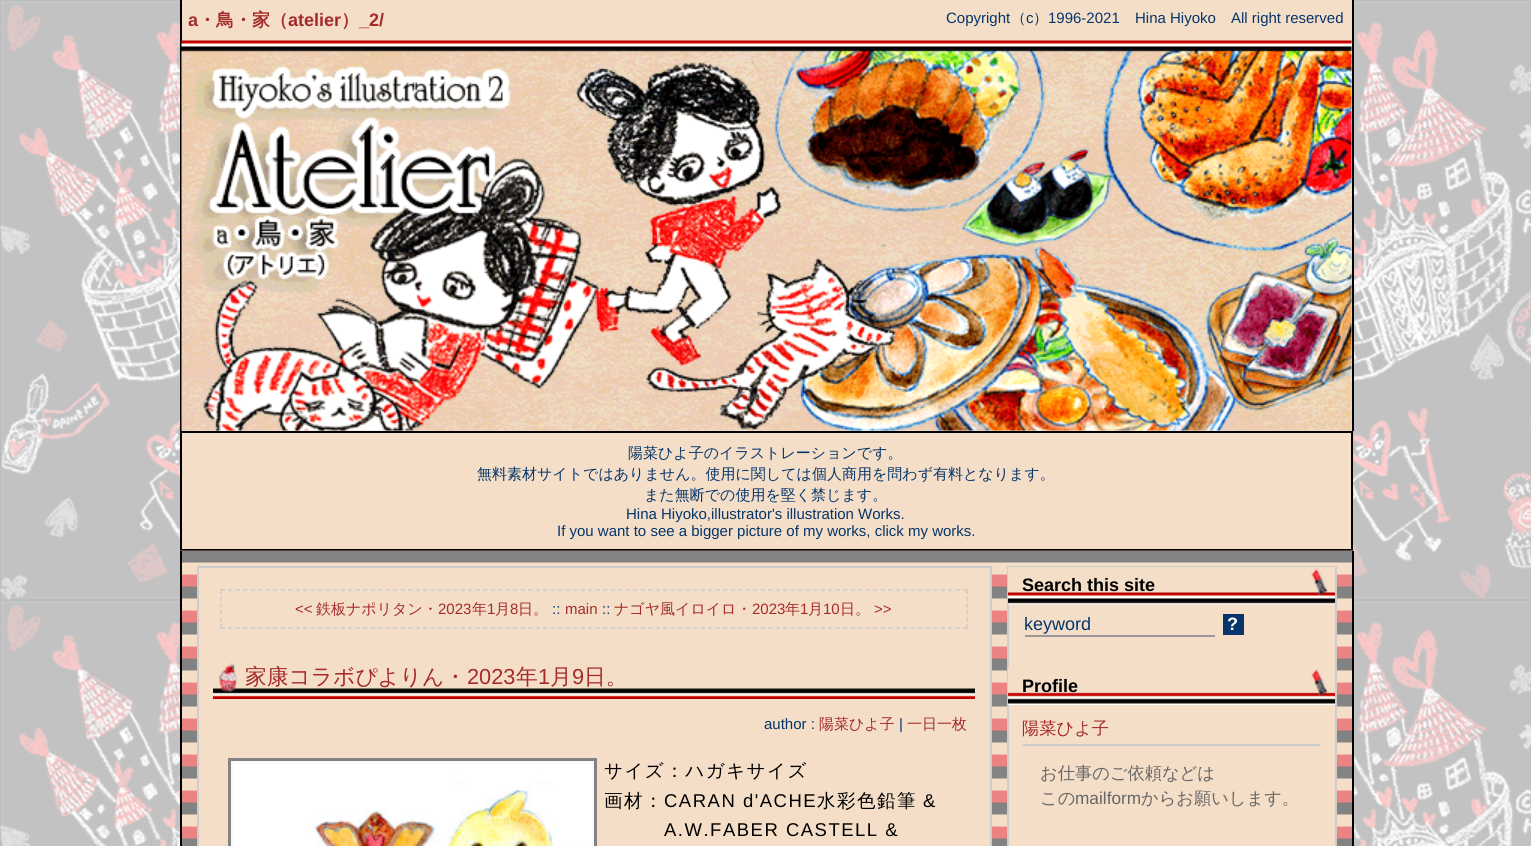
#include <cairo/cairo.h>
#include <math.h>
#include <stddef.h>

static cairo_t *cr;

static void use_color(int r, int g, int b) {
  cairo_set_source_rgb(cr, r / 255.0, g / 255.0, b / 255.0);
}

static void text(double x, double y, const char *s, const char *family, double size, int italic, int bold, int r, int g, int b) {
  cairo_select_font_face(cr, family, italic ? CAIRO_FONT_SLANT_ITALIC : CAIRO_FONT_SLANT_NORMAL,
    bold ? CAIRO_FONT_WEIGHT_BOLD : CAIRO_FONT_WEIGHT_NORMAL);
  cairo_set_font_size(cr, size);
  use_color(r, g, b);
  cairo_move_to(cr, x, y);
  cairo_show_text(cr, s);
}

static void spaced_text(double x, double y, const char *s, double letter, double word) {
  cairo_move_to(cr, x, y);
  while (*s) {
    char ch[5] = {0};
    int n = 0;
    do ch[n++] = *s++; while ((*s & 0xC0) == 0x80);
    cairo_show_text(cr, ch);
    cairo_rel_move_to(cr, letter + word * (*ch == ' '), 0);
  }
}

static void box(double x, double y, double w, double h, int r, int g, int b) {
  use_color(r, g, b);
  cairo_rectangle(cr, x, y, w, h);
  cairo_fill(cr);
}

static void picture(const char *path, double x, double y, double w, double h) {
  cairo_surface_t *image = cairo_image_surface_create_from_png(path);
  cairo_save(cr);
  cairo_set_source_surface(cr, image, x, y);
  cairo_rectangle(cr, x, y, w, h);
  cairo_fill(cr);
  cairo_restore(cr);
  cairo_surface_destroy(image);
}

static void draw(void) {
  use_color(255, 255, 255);
  cairo_paint(cr);
  picture("img_01.png", 0, 0, 1531, 846);
  box(182, 0, 1170, 431, 244, 222, 200);
  box(1352, 0, 2, 431, 0, 0, 0);
  box(180, 0, 2, 431, 0, 0, 0);
  picture("img_02.png", 181, 40, 1171, 391);
  use_color(244, 222, 200);
  cairo_rectangle(cr, 181, 432, 1171, 118);
  cairo_fill_preserve(cr);
  use_color(0, 0, 0);
  cairo_stroke(cr);
  picture("img_03.png", 180, 550, 1173, 296);
  box(1352, 551, 2, 295, 0, 0, 0);
  box(180, 551, 2, 295, 0, 0, 0);
  box(199, 574, 791, 272, 244, 222, 200);
  cairo_rectangle(cr, 198, 567, 793, 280);
  use_color(204, 204, 204);
  cairo_stroke(cr);
  cairo_new_path(cr);
  cairo_move_to(cr, 220.5, 590);
  cairo_line_to(cr, 967.5, 590);
  cairo_set_line_width(cr, 1.5);
  cairo_set_dash(cr, (double[]){4.5, 3}, 2, 0);
  cairo_stroke(cr);
  cairo_new_path(cr);
  cairo_move_to(cr, 967, 589.5);
  cairo_line_to(cr, 967, 628.5);
  cairo_set_dash(cr, (double[]){4.5, 2.4}, 2, 0);
  cairo_stroke(cr);
  cairo_new_path(cr);
  cairo_move_to(cr, 220.5, 628);
  cairo_line_to(cr, 967.5, 628);
  cairo_set_dash(cr, (double[]){4.5, 3}, 2, 0);
  cairo_stroke(cr);
  cairo_new_path(cr);
  cairo_move_to(cr, 221, 589.5);
  cairo_line_to(cr, 221, 628.5);
  cairo_set_dash(cr, (double[]){4.5, 2.4}, 2, 0);
  cairo_stroke(cr);
  picture("img_04.png", 213, 663, 762, 36);
  use_color(249, 249, 249);
  cairo_rectangle(cr, 229.5, 759.5, 366, 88);
  cairo_fill_preserve(cr);
  use_color(131, 131, 131);
  cairo_set_line_width(cr, 3);
  cairo_set_dash(cr, NULL, 0, 0);
  cairo_stroke(cr);
  picture("img_05.png", 233, 762, 359, 84);
  box(1009, 610, 326, 236, 244, 222, 200);
  cairo_rectangle(cr, 1008, 567, 328, 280);
  use_color(204, 204, 204);
  cairo_set_line_width(cr, 2);
  cairo_stroke(cr);
  picture("img_06.png", 1008, 567, 327, 38);
  box(1025, 635, 190, 2, 153, 153, 153);
  box(1223, 614, 21, 21, 5, 53, 106);
  picture("img_07.png", 1008, 667, 327, 38);
  box(1023, 744, 297, 2, 204, 204, 204);
  text(188, 26, "a", "Liberation Sans", 18, 0, 1, 165, 43, 43);
  text(198, 26, "・鳥・家（", "WenQuanYi Zen Hei", 18, 0, 1, 165, 43, 43);
  text(288, 26, "atelier", "Liberation Sans", 18, 0, 1, 165, 43, 43);
  text(341, 26, "）", "WenQuanYi Zen Hei", 18, 0, 1, 165, 43, 43);
  text(359, 26, "_2/", "Liberation Sans", 18, 0, 1, 165, 43, 43);
  text(946, 23, "Copyright", "Liberation Sans", 15, 0, 0, 5, 53, 106);
  text(1011, 23, "（", "WenQuanYi Zen Hei Medium", 15, 0, 0, 5, 53, 106);
  text(1026, 23, "c", "Liberation Sans", 15, 0, 0, 5, 53, 106);
  text(1033, 23, "）", "WenQuanYi Zen Hei Medium", 15, 0, 0, 5, 53, 106);
  text(1048, 23, "1996-2021", "Liberation Sans", 15, 0, 0, 5, 53, 106);
  text(1135, 23, "Hina Hiyoko", "Liberation Sans", 15, 0, 0, 5, 53, 106);
  text(1231, 23, "All right reserved", "Liberation Sans", 15, 0, 0, 5, 53, 106);
  text(628, 458, "陽菜ひよ子のイラストレーションです。", "WenQuanYi Zen Hei Medium", 15, 0, 0, 5, 53, 106);
  text(477, 479, "無料素材サイトではありません。使用に関しては個人商用を問わず有料となります。", "WenQuanYi Zen Hei Medium", 15, 0, 0, 5, 53, 106);
  text(644, 500, "また無断での使用を堅く禁じます。", "WenQuanYi Zen Hei Medium", 15, 0, 0, 5, 53, 106);
  text(626, 519, "Hina Hiyoko,illustrator's illustration Works.", "Liberation Sans", 15, 0, 0, 5, 53, 106);
  text(557, 536, "If you want to see a bigger picture of my works, click my works.", "Liberation Sans", 15, 0, 0, 5, 53, 106);
  text(295, 614, "<<", "Liberation Sans", 15, 0, 0, 165, 43, 43);
  text(316, 614, "鉄板ナポリタン・", "WenQuanYi Zen Hei Medium", 15, 0, 0, 165, 43, 43);
  text(438, 614, "2023", "Liberation Sans", 15, 0, 0, 165, 43, 43);
  text(472, 614, "年", "WenQuanYi Zen Hei Medium", 15, 0, 0, 165, 43, 43);
  text(487, 614, "1", "Liberation Sans", 15, 0, 0, 165, 43, 43);
  text(495, 614, "月", "WenQuanYi Zen Hei Medium", 15, 0, 0, 165, 43, 43);
  text(510, 614, "8", "Liberation Sans", 15, 0, 0, 165, 43, 43);
  text(518, 614, "日。", "WenQuanYi Zen Hei Medium", 15, 0, 0, 165, 43, 43);
  text(552, 614, "::", "Liberation Sans", 15, 0, 0, 5, 53, 106);
  text(565, 614, "main", "Liberation Sans", 15, 0, 0, 165, 43, 43);
  text(602, 614, "::", "Liberation Sans", 15, 0, 0, 5, 53, 106);
  text(614, 614, "ナゴヤ風イロイロ・", "WenQuanYi Zen Hei Medium", 15, 0, 0, 165, 43, 43);
  text(752, 614, "2023", "Liberation Sans", 15, 0, 0, 165, 43, 43);
  text(785, 614, "年", "WenQuanYi Zen Hei Medium", 15, 0, 0, 165, 43, 43);
  text(800, 614, "1", "Liberation Sans", 15, 0, 0, 165, 43, 43);
  text(808, 614, "月", "WenQuanYi Zen Hei Medium", 15, 0, 0, 165, 43, 43);
  text(823, 614, "10", "Liberation Sans", 15, 0, 0, 165, 43, 43);
  text(840, 614, "日。", "WenQuanYi Zen Hei Medium", 15, 0, 0, 165, 43, 43);
  text(874, 614, ">>", "Liberation Sans", 15, 0, 0, 165, 43, 43);
  text(245, 684, "家康コラボぴよりん・", "WenQuanYi Zen Hei Medium", 21.75, 0, 0, 165, 43, 43);
  text(467, 684, "2023", "Liberation Sans", 21.75, 0, 0, 165, 43, 43);
  text(516, 684, "年", "WenQuanYi Zen Hei Medium", 21.75, 0, 0, 165, 43, 43);
  text(538, 684, "1", "Liberation Sans", 21.75, 0, 0, 165, 43, 43);
  text(550, 684, "月", "WenQuanYi Zen Hei Medium", 21.75, 0, 0, 165, 43, 43);
  text(572, 684, "9", "Liberation Sans", 21.75, 0, 0, 165, 43, 43);
  text(584, 684, "日。", "WenQuanYi Zen Hei Medium", 21.75, 0, 0, 165, 43, 43);
  text(764, 729, "author :", "Liberation Sans", 15, 0, 0, 5, 53, 106);
  text(819, 729, "陽菜ひよ子", "WenQuanYi Zen Hei Medium", 15, 0, 0, 165, 43, 43);
  text(899, 729, "|", "Liberation Sans", 15, 0, 0, 5, 53, 106);
  text(907, 729, "一日一枚", "WenQuanYi Zen Hei Medium", 15, 0, 0, 165, 43, 43);
  cairo_set_font_size(cr, 18.5);
  use_color(0, 0, 0);
  spaced_text(604, 777, "サイズ：ハガキサイズ", 1.5, 0);
  spaced_text(604, 807, "画材：", 1.5, 0);
  cairo_select_font_face(cr, "Liberation Sans", CAIRO_FONT_SLANT_NORMAL, CAIRO_FONT_WEIGHT_NORMAL);
  spaced_text(664, 807, "CARAN d'ACHE", 1.5, 0);
  cairo_select_font_face(cr, "WenQuanYi Zen Hei Medium", CAIRO_FONT_SLANT_NORMAL, CAIRO_FONT_WEIGHT_NORMAL);
  spaced_text(817, 807, "水彩色鉛筆", 1.5, 0);
  cairo_select_font_face(cr, "Liberation Sans", CAIRO_FONT_SLANT_NORMAL, CAIRO_FONT_WEIGHT_NORMAL);
  spaced_text(923, 807, "&", 1.5, 0);
  spaced_text(664, 836, "A.W.FABER CASTELL &", 1.5, 0);
  text(1022, 591, "Search this site", "Liberation Sans", 18, 0, 1, 0, 0, 0);
  text(1024, 630, "keyword", "Liberation Sans", 18, 0, 0, 5, 53, 106);
  text(1227, 630, "?", "Liberation Sans", 18, 0, 1, 255, 255, 255);
  text(1022, 692, "Profile", "Liberation Sans", 18, 0, 1, 0, 0, 0);
  text(1022, 734, "陽菜ひよ子", "WenQuanYi Zen Hei Medium", 17.25, 0, 0, 165, 43, 43);
  text(1040, 779, "お仕事のご依頼などは", "WenQuanYi Zen Hei Medium", 17.25, 0, 0, 102, 102, 102);
  text(1040, 804, "この", "WenQuanYi Zen Hei Medium", 17.25, 0, 0, 102, 102, 102);
  text(1075, 804, "mailform", "Liberation Sans", 17.25, 0, 0, 102, 102, 102);
  text(1141, 804, "からお願いします。", "WenQuanYi Zen Hei Medium", 17.25, 0, 0, 102, 102, 102);
}

int main(void) {
  cairo_surface_t *surface = cairo_image_surface_create(CAIRO_FORMAT_RGB24, 1531, 846);
  cr = cairo_create(surface);
  cairo_font_options_t *options = cairo_font_options_create();
  cairo_font_options_set_hint_metrics(options, CAIRO_HINT_METRICS_OFF);
  cairo_font_options_set_hint_style(options, CAIRO_HINT_STYLE_NONE);
  cairo_set_font_options(cr, options);
  cairo_set_miter_limit(cr, 4);
  draw();
  cairo_surface_write_to_png(surface, "out.png");
  cairo_font_options_destroy(options);
  cairo_destroy(cr);
  cairo_surface_destroy(surface);
  return 0;
}
